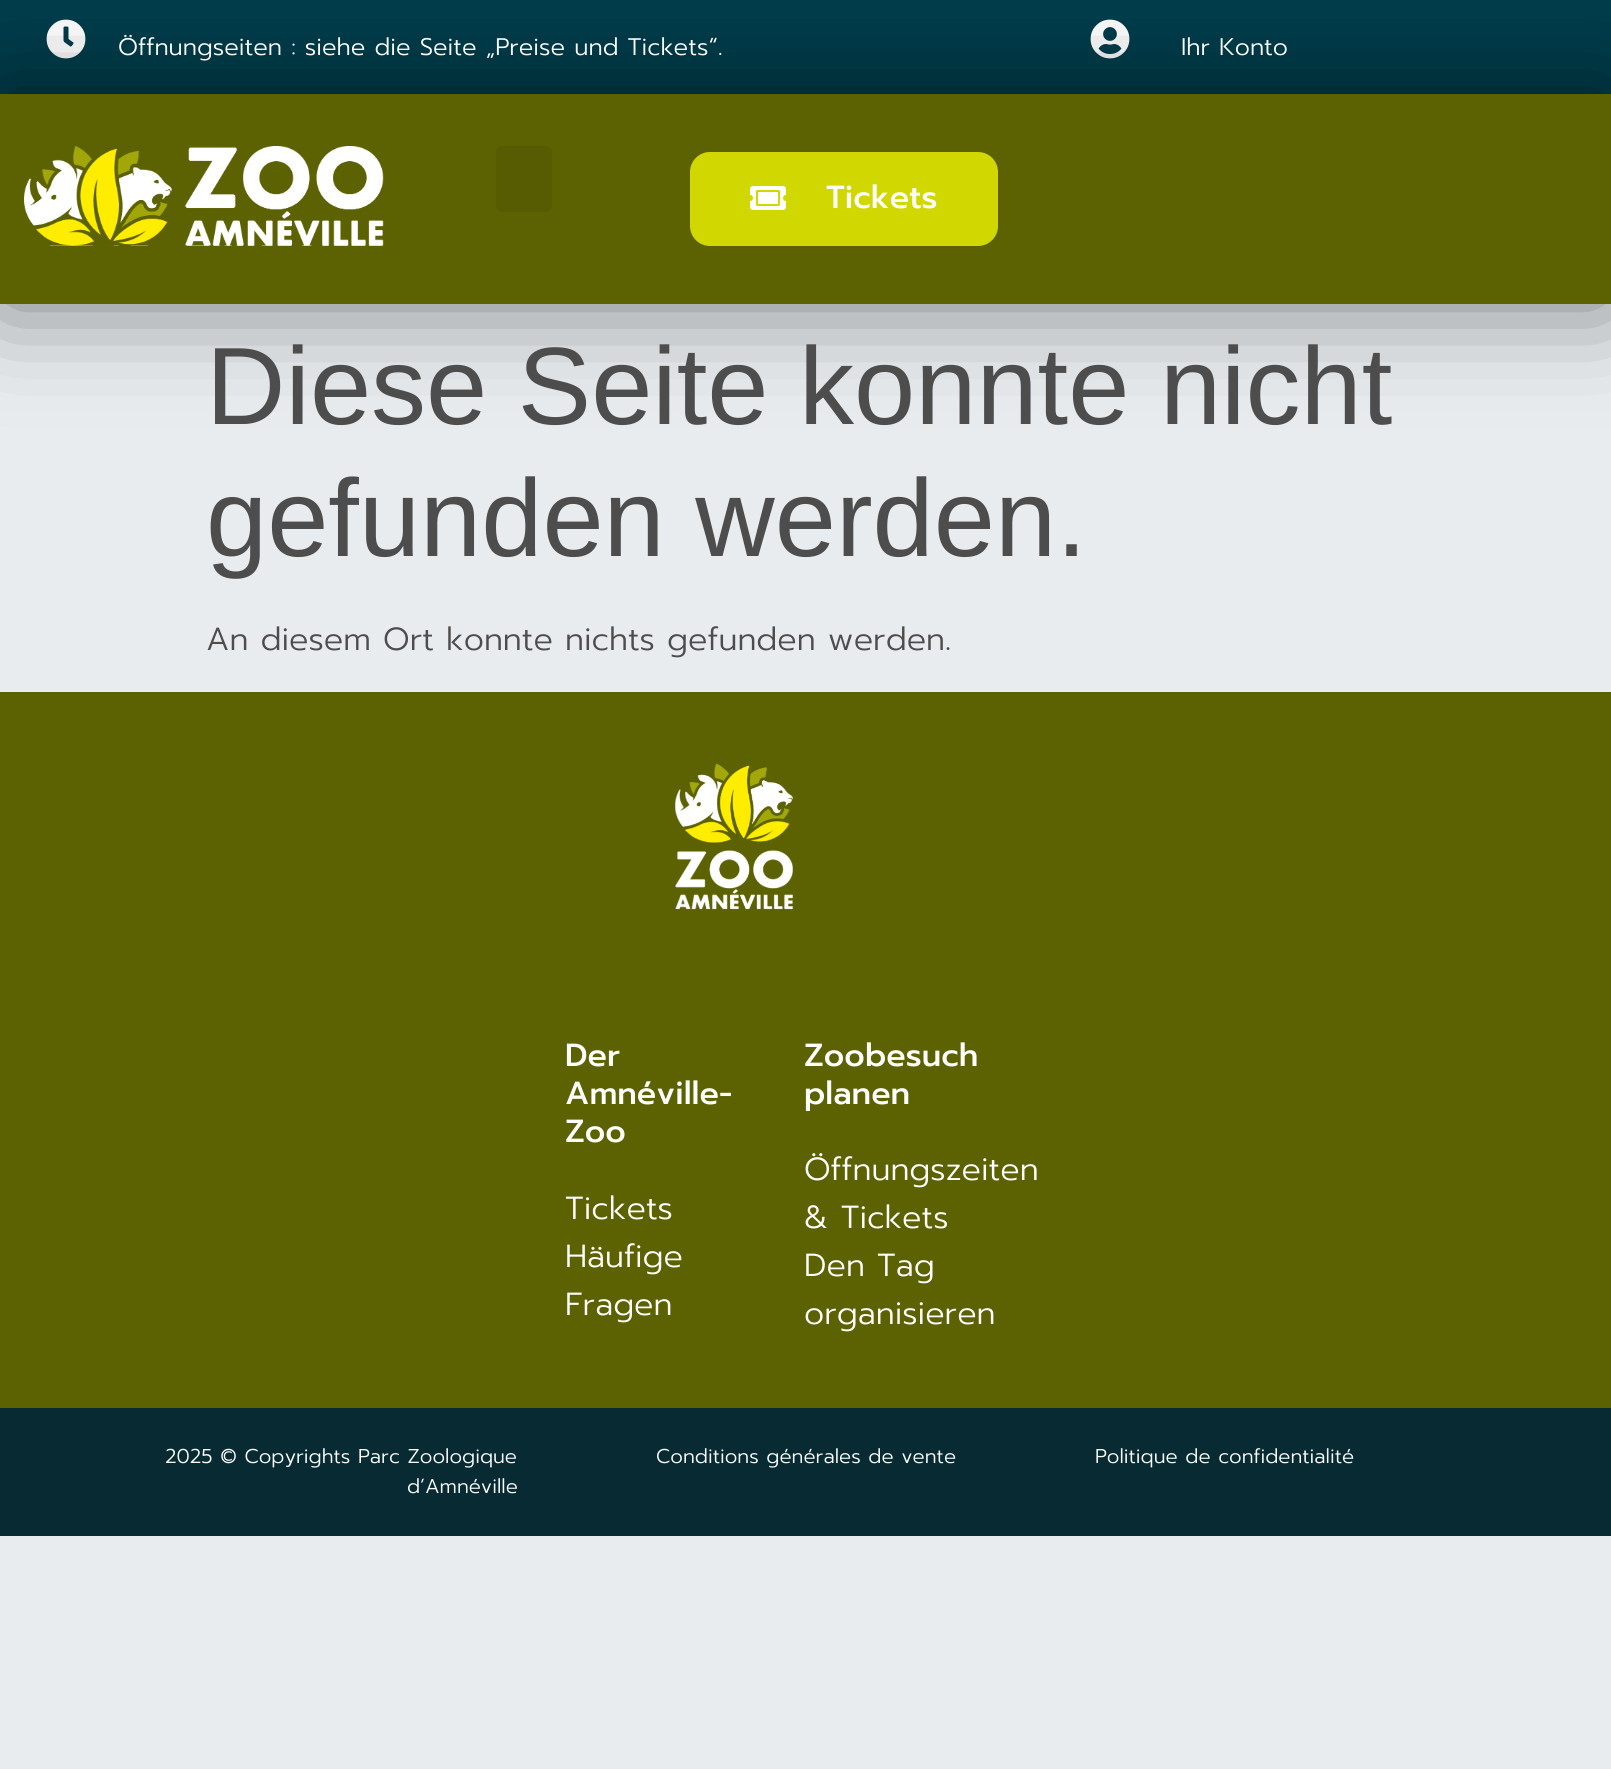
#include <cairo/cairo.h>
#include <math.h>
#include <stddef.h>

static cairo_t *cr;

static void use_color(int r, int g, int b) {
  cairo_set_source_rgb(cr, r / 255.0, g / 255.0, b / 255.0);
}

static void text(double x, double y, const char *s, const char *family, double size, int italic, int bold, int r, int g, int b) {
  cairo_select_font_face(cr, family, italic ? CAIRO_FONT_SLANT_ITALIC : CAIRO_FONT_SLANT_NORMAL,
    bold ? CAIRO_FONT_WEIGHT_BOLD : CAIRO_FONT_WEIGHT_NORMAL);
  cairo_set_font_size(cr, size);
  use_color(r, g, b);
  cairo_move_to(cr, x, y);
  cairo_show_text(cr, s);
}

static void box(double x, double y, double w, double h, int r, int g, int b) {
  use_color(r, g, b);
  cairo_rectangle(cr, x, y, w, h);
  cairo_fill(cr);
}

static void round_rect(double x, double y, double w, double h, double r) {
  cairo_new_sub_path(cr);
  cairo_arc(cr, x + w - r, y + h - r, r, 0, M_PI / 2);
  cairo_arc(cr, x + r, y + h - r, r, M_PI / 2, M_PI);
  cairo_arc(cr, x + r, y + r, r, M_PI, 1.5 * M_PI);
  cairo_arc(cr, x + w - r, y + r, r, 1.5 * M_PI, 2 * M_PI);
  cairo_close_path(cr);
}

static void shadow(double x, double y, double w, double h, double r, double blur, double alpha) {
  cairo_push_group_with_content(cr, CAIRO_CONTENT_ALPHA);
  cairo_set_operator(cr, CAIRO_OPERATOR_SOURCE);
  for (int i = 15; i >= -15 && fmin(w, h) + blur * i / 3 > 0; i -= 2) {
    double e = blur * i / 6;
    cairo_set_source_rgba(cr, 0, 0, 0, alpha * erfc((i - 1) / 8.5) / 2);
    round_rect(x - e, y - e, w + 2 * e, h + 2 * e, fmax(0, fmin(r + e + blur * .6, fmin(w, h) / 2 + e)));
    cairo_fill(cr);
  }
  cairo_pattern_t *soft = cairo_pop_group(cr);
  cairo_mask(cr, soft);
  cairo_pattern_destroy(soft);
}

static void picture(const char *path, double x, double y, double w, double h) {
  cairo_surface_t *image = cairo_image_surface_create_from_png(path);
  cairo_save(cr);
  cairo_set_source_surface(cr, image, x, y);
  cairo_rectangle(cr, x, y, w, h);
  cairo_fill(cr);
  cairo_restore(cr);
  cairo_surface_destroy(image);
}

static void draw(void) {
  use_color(232, 236, 239);
  cairo_paint(cr);
  box(0, 0, 1611, 94, 0, 61, 75);
  picture("img_01.png", 46, 19, 40, 40);
  picture("img_02.png", 1090, 19, 40, 40);
  use_color(0, 0, 0);
  shadow(0, 94, 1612, 210, 0, 50, 0.5);
  box(0, 94, 1611, 210, 92, 97, 2);
  picture("img_03.png", 24, 146, 360, 100);
  use_color(87, 92, 2);
  round_rect(496, 146, 56, 66, 6);
  cairo_fill(cr);
  use_color(209, 215, 0);
  round_rect(690, 152, 308, 94, 20);
  cairo_fill(cr);
  picture("img_04.png", 750, 186, 36, 24);
  box(0, 692, 1611, 716, 92, 97, 2);
  picture("img_05.png", 675, 763, 118, 147);
  box(0, 1408, 1611, 128, 8, 43, 51);
  text(118, 55, "Öffnungseiten : siehe die Seite „Preise und Tickets“.", "Prompt Light", 24, 0, 0, 255, 255, 255);
  text(1181, 55, "Ihr Konto", "Prompt Light", 24, 0, 0, 255, 255, 255);
  text(826, 208, "Tickets", "Prompt Medium", 32, 0, 0, 255, 255, 255);
  text(206, 424, "Diese Seite konnte nicht", "Liberation Sans", 110, 0, 0, 78, 77, 77);
  text(206, 556, "gefunden werden.", "Liberation Sans", 110, 0, 0, 78, 77, 77);
  text(206, 650, "An diesem Ort konnte nichts gefunden werden.", "Prompt Light", 32, 0, 0, 78, 77, 77);
  text(565, 1066, "Der", "Prompt Medium", 32, 0, 0, 255, 255, 255);
  text(565, 1104, "Amnéville-", "Prompt Medium", 32, 0, 0, 255, 255, 255);
  text(565, 1142, "Zoo", "Prompt Medium", 32, 0, 0, 255, 255, 255);
  text(565, 1219, "Tickets", "Prompt Light", 32, 0, 0, 255, 255, 255);
  text(565, 1267, "Häufige", "Prompt Light", 32, 0, 0, 255, 255, 255);
  text(565, 1315, "Fragen", "Prompt Light", 32, 0, 0, 255, 255, 255);
  text(804, 1066, "Zoobesuch", "Prompt Medium", 32, 0, 0, 255, 255, 255);
  text(804, 1104, "planen", "Prompt Medium", 32, 0, 0, 255, 255, 255);
  text(804, 1180, "Öffnungszeiten", "Prompt Light", 32, 0, 0, 255, 255, 255);
  text(804, 1228, "& Tickets", "Prompt Light", 32, 0, 0, 255, 255, 255);
  text(804, 1276, "Den Tag", "Prompt Light", 32, 0, 0, 255, 255, 255);
  text(804, 1324, "organisieren", "Prompt Light", 32, 0, 0, 255, 255, 255);
  text(165, 1463, "2025 © Copyrights Parc Zoologique", "Prompt Light", 20, 0, 0, 255, 255, 255);
  text(407, 1493, "d’Amnéville", "Prompt Light", 20, 0, 0, 255, 255, 255);
  text(656, 1463, "Conditions générales de vente", "Prompt Light", 20, 0, 0, 255, 255, 255);
  text(1095, 1463, "Politique de confidentialité", "Prompt Light", 20, 0, 0, 255, 255, 255);
}

int main(void) {
  cairo_surface_t *surface = cairo_image_surface_create(CAIRO_FORMAT_RGB24, 1611, 1769);
  cr = cairo_create(surface);
  cairo_font_options_t *options = cairo_font_options_create();
  cairo_font_options_set_hint_metrics(options, CAIRO_HINT_METRICS_OFF);
  cairo_font_options_set_hint_style(options, CAIRO_HINT_STYLE_NONE);
  cairo_set_font_options(cr, options);
  cairo_set_miter_limit(cr, 4);
  draw();
  cairo_surface_write_to_png(surface, "out.png");
  cairo_font_options_destroy(options);
  cairo_destroy(cr);
  cairo_surface_destroy(surface);
  return 0;
}
